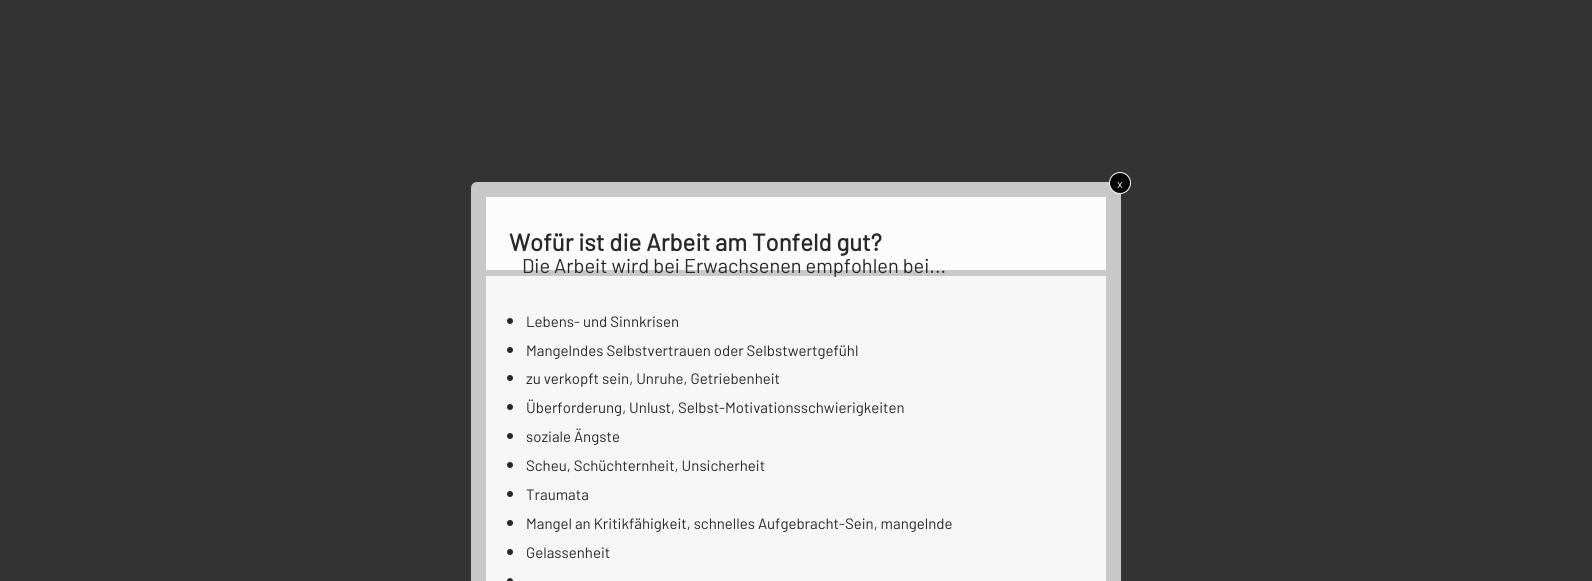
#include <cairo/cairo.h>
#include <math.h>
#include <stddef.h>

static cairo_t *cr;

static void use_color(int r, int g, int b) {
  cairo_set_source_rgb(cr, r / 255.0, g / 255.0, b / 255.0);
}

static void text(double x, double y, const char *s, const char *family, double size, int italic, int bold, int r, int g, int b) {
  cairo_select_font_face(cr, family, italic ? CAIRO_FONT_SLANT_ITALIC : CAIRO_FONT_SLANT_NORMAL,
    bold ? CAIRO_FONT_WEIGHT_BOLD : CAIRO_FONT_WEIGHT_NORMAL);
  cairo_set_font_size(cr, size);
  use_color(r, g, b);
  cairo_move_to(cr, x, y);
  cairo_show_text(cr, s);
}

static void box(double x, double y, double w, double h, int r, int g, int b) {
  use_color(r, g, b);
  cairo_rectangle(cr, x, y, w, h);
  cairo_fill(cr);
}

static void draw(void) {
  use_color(51, 51, 51);
  cairo_paint(cr);
  use_color(200, 200, 200);
  cairo_new_path(cr);
  cairo_move_to(cr, 477, 182);
  cairo_line_to(cr, 1115, 182);
  cairo_curve_to(cr, 1118.5, 182, 1121, 184.5, 1121, 188);
  cairo_line_to(cr, 1121, 581);
  cairo_line_to(cr, 471, 581);
  cairo_line_to(cr, 471, 188);
  cairo_curve_to(cr, 471, 184.5, 473.5, 182, 477, 182);
  cairo_close_path(cr);
  cairo_fill(cr);
  use_color(0, 0, 0);
  cairo_arc(cr, 1120, 183, 10.5, 0, 2 * M_PI);
  cairo_fill_preserve(cr);
  use_color(255, 255, 255);
  cairo_set_line_width(cr, 1);
  cairo_stroke(cr);
  box(486, 197, 620, 73, 252, 252, 252);
  box(486, 276, 620, 305, 246, 246, 246);
  use_color(40, 40, 40);
  cairo_arc(cr, 510, 321, 3, 0, 2 * M_PI);
  cairo_fill(cr);
  cairo_arc(cr, 510, 350, 3, 0, 2 * M_PI);
  cairo_fill(cr);
  cairo_arc(cr, 510, 378, 3, 0, 2 * M_PI);
  cairo_fill(cr);
  cairo_arc(cr, 510, 407, 3, 0, 2 * M_PI);
  cairo_fill(cr);
  cairo_arc(cr, 510, 436, 3, 0, 2 * M_PI);
  cairo_fill(cr);
  cairo_arc(cr, 510, 465, 3, 0, 2 * M_PI);
  cairo_fill(cr);
  cairo_arc(cr, 510, 494, 3, 0, 2 * M_PI);
  cairo_fill(cr);
  cairo_arc(cr, 510, 523, 3, 0, 2 * M_PI);
  cairo_fill(cr);
  cairo_arc(cr, 510, 552, 3, 0, 2 * M_PI);
  cairo_fill(cr);
  cairo_new_path(cr);
  cairo_move_to(cr, 510, 578);
  cairo_curve_to(cr, 511.5, 578, 513, 579.5, 513, 581);
  cairo_line_to(cr, 507, 581);
  cairo_curve_to(cr, 507, 579.5, 508.5, 578, 510, 578);
  cairo_close_path(cr);
  cairo_fill(cr);
  text(1117, 188, "x", "Barlow", 12, 0, 0, 255, 255, 255);
  text(509, 251, "Wofür ist die Arbeit am Tonfeld gut?", "Barlow", 24, 0, 1, 40, 40, 40);
  text(522, 273, "Die Arbeit wird bei Erwachsenen empfohlen bei...", "Barlow", 20, 0, 0, 40, 40, 40);
  text(526, 327, "Lebens- und Sinnkrisen", "Barlow", 15, 0, 0, 40, 40, 40);
  text(526, 356, "Mangelndes Selbstvertrauen oder Selbstwertgefühl", "Barlow", 15, 0, 0, 40, 40, 40);
  text(526, 384, "zu verkopft sein, Unruhe, Getriebenheit", "Barlow", 15, 0, 0, 40, 40, 40);
  text(526, 413, "Überforderung, Unlust, Selbst-Motivationsschwierigkeiten", "Barlow", 15, 0, 0, 40, 40, 40);
  text(526, 442, "soziale Ängste", "Barlow", 15, 0, 0, 40, 40, 40);
  text(526, 471, "Scheu, Schüchternheit, Unsicherheit", "Barlow", 15, 0, 0, 40, 40, 40);
  text(526, 500, "Traumata", "Barlow", 15, 0, 0, 40, 40, 40);
  text(526, 529, "Mangel an Kritikfähigkeit, schnelles Aufgebracht-Sein, mangelnde", "Barlow", 15, 0, 0, 40, 40, 40);
  text(526, 558, "Gelassenheit", "Barlow", 15, 0, 0, 40, 40, 40);
}

int main(void) {
  cairo_surface_t *surface = cairo_image_surface_create(CAIRO_FORMAT_RGB24, 1592, 581);
  cr = cairo_create(surface);
  cairo_font_options_t *options = cairo_font_options_create();
  cairo_font_options_set_hint_metrics(options, CAIRO_HINT_METRICS_OFF);
  cairo_font_options_set_hint_style(options, CAIRO_HINT_STYLE_NONE);
  cairo_set_font_options(cr, options);
  cairo_set_miter_limit(cr, 4);
  draw();
  cairo_surface_write_to_png(surface, "out.png");
  cairo_font_options_destroy(options);
  cairo_destroy(cr);
  cairo_surface_destroy(surface);
  return 0;
}
